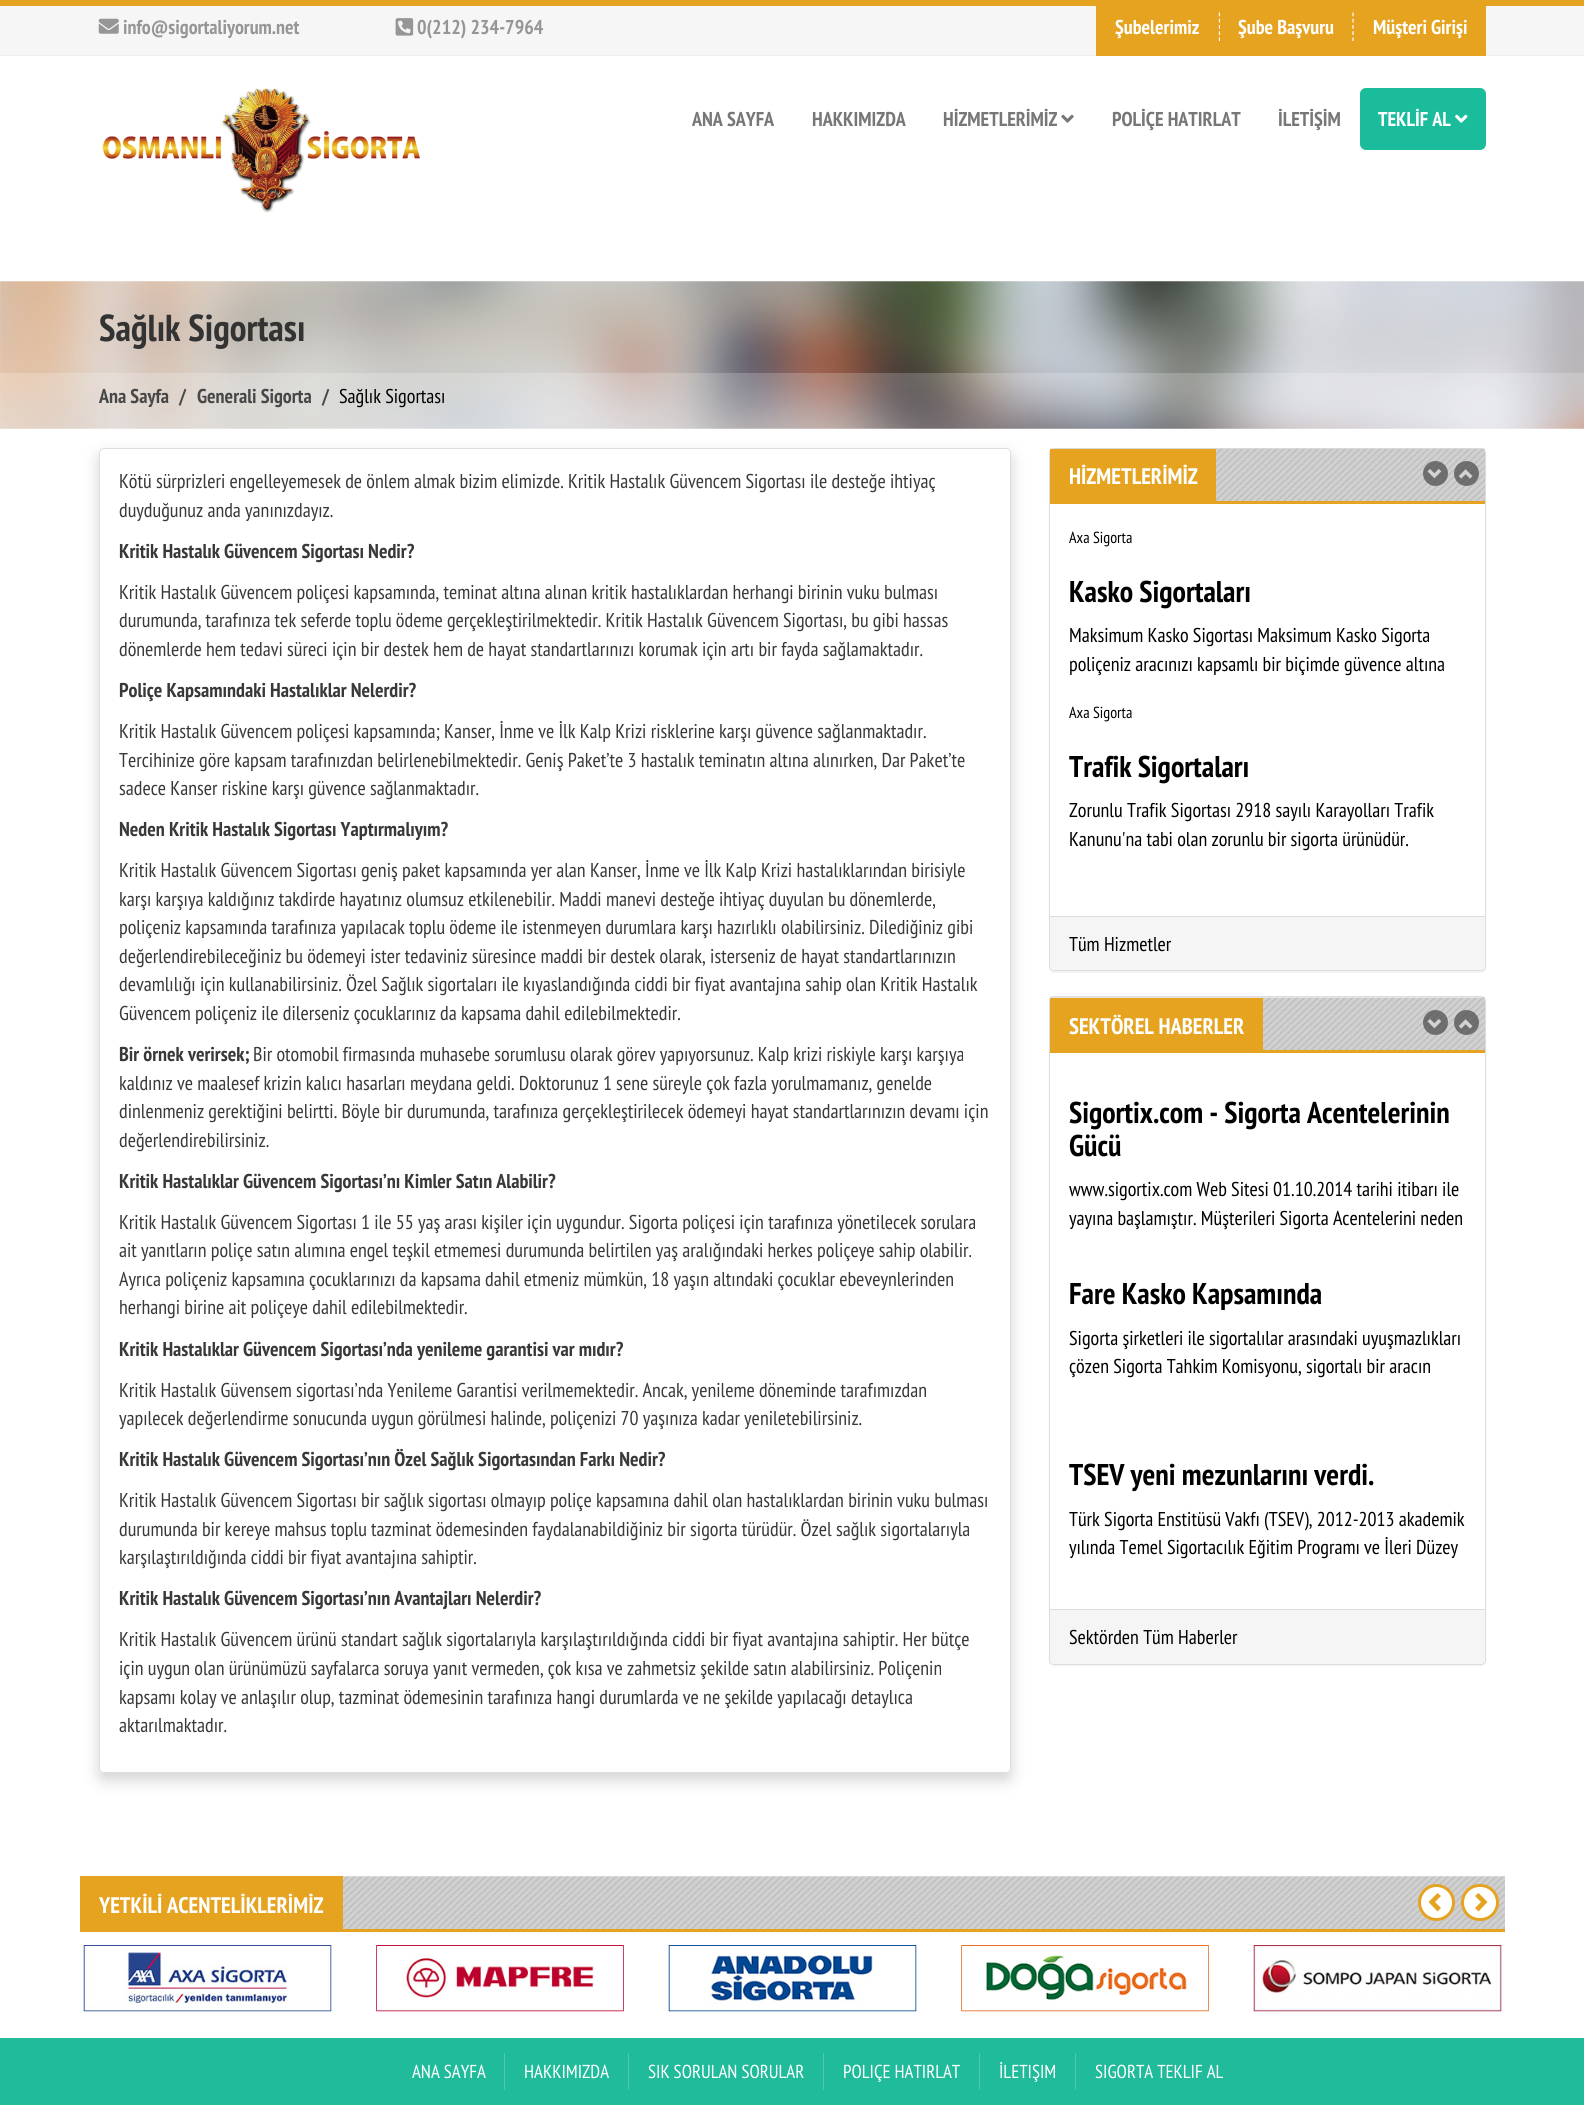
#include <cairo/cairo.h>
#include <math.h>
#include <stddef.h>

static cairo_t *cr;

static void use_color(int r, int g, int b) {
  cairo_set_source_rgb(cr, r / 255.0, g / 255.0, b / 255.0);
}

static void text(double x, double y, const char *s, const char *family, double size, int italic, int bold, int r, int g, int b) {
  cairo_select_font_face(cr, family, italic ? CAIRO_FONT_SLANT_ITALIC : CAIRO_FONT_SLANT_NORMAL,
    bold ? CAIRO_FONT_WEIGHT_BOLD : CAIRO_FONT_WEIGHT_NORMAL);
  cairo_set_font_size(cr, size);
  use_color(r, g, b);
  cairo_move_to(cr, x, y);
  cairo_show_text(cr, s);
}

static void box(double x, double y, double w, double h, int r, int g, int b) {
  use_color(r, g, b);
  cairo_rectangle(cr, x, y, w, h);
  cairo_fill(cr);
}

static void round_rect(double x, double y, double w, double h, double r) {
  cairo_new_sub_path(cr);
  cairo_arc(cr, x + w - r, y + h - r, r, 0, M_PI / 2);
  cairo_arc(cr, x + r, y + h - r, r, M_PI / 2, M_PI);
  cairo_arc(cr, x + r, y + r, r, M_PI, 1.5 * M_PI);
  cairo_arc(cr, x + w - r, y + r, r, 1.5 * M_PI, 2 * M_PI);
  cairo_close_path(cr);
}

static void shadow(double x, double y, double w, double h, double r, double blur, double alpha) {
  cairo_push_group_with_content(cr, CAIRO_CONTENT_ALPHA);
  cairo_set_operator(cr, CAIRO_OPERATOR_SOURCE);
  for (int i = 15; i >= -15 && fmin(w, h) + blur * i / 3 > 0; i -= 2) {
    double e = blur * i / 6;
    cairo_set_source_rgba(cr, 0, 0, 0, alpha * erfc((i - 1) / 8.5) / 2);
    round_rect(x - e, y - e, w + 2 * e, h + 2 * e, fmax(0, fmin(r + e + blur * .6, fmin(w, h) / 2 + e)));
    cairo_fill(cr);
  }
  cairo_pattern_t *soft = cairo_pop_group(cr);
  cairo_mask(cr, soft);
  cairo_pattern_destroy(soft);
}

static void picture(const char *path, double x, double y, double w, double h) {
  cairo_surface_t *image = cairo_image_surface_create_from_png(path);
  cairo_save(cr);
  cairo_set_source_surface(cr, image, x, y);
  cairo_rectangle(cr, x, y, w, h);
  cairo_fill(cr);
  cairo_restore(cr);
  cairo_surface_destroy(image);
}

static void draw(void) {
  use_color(255, 255, 255);
  cairo_paint(cr);
  box(0, 6, 1584, 49, 246, 246, 246);
  box(0, 0, 1584, 6, 229, 163, 32);
  box(0, 55, 1584, 1, 238, 238, 238);
  picture("img_01.png", 98, 18, 21, 16);
  picture("img_02.png", 395, 18, 19, 18);
  box(1096, 6, 124, 50, 229, 163, 32);
  cairo_new_path(cr);
  cairo_move_to(cr, 1219.5, 12.5);
  cairo_line_to(cr, 1219.5, 41);
  use_color(255, 255, 255);
  cairo_set_line_width(cr, 1.2);
  cairo_set_dash(cr, (double[]){3.75, 2.5}, 2, 0);
  cairo_stroke(cr);
  box(1220, 6, 266, 50, 229, 163, 32);
  cairo_new_path(cr);
  cairo_move_to(cr, 1353, 12.5);
  cairo_line_to(cr, 1353, 41);
  use_color(255, 255, 255);
  cairo_stroke(cr);
  picture("img_03.png", 102, 88, 318, 125);
  picture("img_04.png", 1061, 114, 13, 9);
  use_color(26, 188, 156);
  round_rect(1360, 88, 126, 62, 6);
  cairo_fill(cr);
  picture("img_05.png", 1455, 114, 13, 9);
  picture("img_06.png", 0, 281, 1584, 148);
  cairo_set_source_rgba(cr, 1, 1, 1, 0.2);
  cairo_rectangle(cr, 0, 373, 1584, 56);
  cairo_fill(cr);
  cairo_save(cr);
  cairo_set_fill_rule(cr, CAIRO_FILL_RULE_EVEN_ODD);
  cairo_new_path(cr);
  cairo_move_to(cr, 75, 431);
  cairo_line_to(cr, 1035, 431);
  cairo_line_to(cr, 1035, 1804);
  cairo_line_to(cr, 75, 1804);
  cairo_close_path(cr);
  cairo_move_to(cr, 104, 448);
  cairo_line_to(cr, 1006, 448);
  cairo_curve_to(cr, 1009, 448, 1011, 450, 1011, 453);
  cairo_line_to(cr, 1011, 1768);
  cairo_curve_to(cr, 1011, 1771, 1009, 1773, 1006, 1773);
  cairo_line_to(cr, 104, 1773);
  cairo_curve_to(cr, 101, 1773, 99, 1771, 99, 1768);
  cairo_line_to(cr, 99, 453);
  cairo_curve_to(cr, 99, 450, 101, 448, 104, 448);
  cairo_close_path(cr);
  cairo_clip(cr);
  use_color(8, 8, 8);
  shadow(99, 455, 912, 1325, 5, 7.5, 0.18);
  cairo_restore(cr);
  round_rect(99.5, 448.5, 911, 1324, 4.5);
  use_color(222, 222, 222);
  cairo_set_line_width(cr, 1);
  cairo_set_dash(cr, NULL, 0, 0);
  cairo_stroke(cr);
  cairo_save(cr);
  cairo_set_fill_rule(cr, CAIRO_FILL_RULE_EVEN_ODD);
  cairo_new_path(cr);
  cairo_move_to(cr, 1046, 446);
  cairo_line_to(cr, 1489, 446);
  cairo_line_to(cr, 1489, 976);
  cairo_line_to(cr, 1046, 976);
  cairo_close_path(cr);
  cairo_move_to(cr, 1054, 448);
  cairo_line_to(cr, 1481, 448);
  cairo_curve_to(cr, 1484, 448, 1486, 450, 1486, 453);
  cairo_line_to(cr, 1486, 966);
  cairo_curve_to(cr, 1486, 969, 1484, 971, 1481, 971);
  cairo_line_to(cr, 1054, 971);
  cairo_curve_to(cr, 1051, 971, 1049, 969, 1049, 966);
  cairo_line_to(cr, 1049, 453);
  cairo_curve_to(cr, 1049, 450, 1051, 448, 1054, 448);
  cairo_close_path(cr);
  cairo_clip(cr);
  use_color(0, 0, 0);
  shadow(1049, 449, 437, 524, 5, 0.5, 0.05);
  cairo_restore(cr);
  round_rect(1049.5, 448.5, 436, 522, 4.5);
  use_color(221, 221, 221);
  cairo_stroke(cr);
  picture("img_07.png", 1050, 448, 435, 53);
  box(1050, 501, 435, 3, 229, 163, 32);
  box(1050, 449, 166, 52, 229, 163, 32);
  cairo_set_source_rgba(cr, 0.282, 0.282, 0.282, 0.7);
  cairo_arc(cr, 1435.5, 473.5, 12.5, 0, 2 * M_PI);
  cairo_fill(cr);
  picture("img_08.png", 1427, 469, 15, 10);
  cairo_arc(cr, 1466.5, 473.5, 12.5, 0, 2 * M_PI);
  cairo_fill(cr);
  picture("img_09.png", 1458, 469, 15, 10);
  use_color(245, 245, 245);
  cairo_new_path(cr);
  cairo_move_to(cr, 1050, 916);
  cairo_line_to(cr, 1485, 916);
  cairo_line_to(cr, 1485, 966);
  cairo_curve_to(cr, 1485, 968, 1483, 970, 1481, 970);
  cairo_line_to(cr, 1054, 970);
  cairo_curve_to(cr, 1052, 970, 1050, 968, 1050, 966);
  cairo_close_path(cr);
  cairo_fill(cr);
  box(1050, 916, 435, 1, 221, 221, 221);
  use_color(0, 0, 0);
  shadow(1049, 998, 437, 668, 5, 0.5, 0.05);
  use_color(255, 255, 255);
  round_rect(1049.5, 996.5, 436, 668, 4.5);
  cairo_fill_preserve(cr);
  use_color(221, 221, 221);
  cairo_stroke(cr);
  picture("img_10.png", 1050, 997, 435, 53);
  box(1050, 1050, 435, 3, 229, 163, 32);
  box(1050, 998, 213, 52, 229, 163, 32);
  cairo_set_source_rgba(cr, 0.282, 0.282, 0.282, 0.7);
  cairo_arc(cr, 1435.5, 1022.5, 12.5, 0, 2 * M_PI);
  cairo_fill(cr);
  picture("img_11.png", 1427, 1019, 15, 10);
  cairo_arc(cr, 1466.5, 1022.5, 12.5, 0, 2 * M_PI);
  cairo_fill(cr);
  picture("img_12.png", 1458, 1019, 15, 10);
  use_color(245, 245, 245);
  cairo_new_path(cr);
  cairo_move_to(cr, 1050, 1609);
  cairo_line_to(cr, 1485, 1609);
  cairo_line_to(cr, 1485, 1660);
  cairo_curve_to(cr, 1485, 1662, 1483, 1664, 1481, 1664);
  cairo_line_to(cr, 1054, 1664);
  cairo_curve_to(cr, 1052, 1664, 1050, 1662, 1050, 1660);
  cairo_close_path(cr);
  cairo_fill(cr);
  box(1050, 1609, 435, 1, 221, 221, 221);
  picture("img_18.png", 343, 1876, 1162, 53);
  use_color(255, 255, 255);
  cairo_arc(cr, 1436.5, 1902.5, 17, 0, 2 * M_PI);
  cairo_fill_preserve(cr);
  use_color(229, 163, 32);
  cairo_set_line_width(cr, 3);
  cairo_stroke(cr);
  cairo_new_path(cr);
  cairo_move_to(cr, 1441, 1896);
  cairo_line_to(cr, 1435, 1902);
  cairo_line_to(cr, 1441, 1908);
  cairo_line_to(cr, 1437.5, 1911.5);
  cairo_line_to(cr, 1428.5, 1902);
  cairo_line_to(cr, 1437.5, 1893);
  cairo_close_path(cr);
  cairo_fill(cr);
  use_color(255, 255, 255);
  round_rect(1462.5, 1885.5, 35, 34, 17);
  cairo_fill_preserve(cr);
  use_color(229, 163, 32);
  cairo_stroke(cr);
  cairo_new_path(cr);
  cairo_move_to(cr, 1487.5, 1902);
  cairo_line_to(cr, 1478.5, 1911.5);
  cairo_line_to(cr, 1475, 1908);
  cairo_line_to(cr, 1481, 1902);
  cairo_line_to(cr, 1475, 1896);
  cairo_line_to(cr, 1478.5, 1893);
  cairo_close_path(cr);
  cairo_fill(cr);
  picture("img_13.png", 83, 1945, 249, 67);
  picture("img_14.png", 376, 1945, 248, 67);
  picture("img_15.png", 668, 1945, 249, 67);
  picture("img_16.png", 961, 1945, 248, 67);
  picture("img_17.png", 1253, 1945, 249, 67);
  box(80, 1929, 1425, 3, 229, 163, 32);
  box(80, 1876, 263, 53, 229, 163, 32);
  box(0, 2038, 1584, 67, 32, 187, 155);
  box(504, 2053, 1, 37, 77, 201, 175);
  box(628, 2053, 1, 37, 77, 201, 175);
  box(823, 2053, 1, 37, 77, 201, 175);
  box(979, 2053, 1, 37, 77, 201, 175);
  box(1075, 2053, 1, 37, 77, 201, 175);
  text(123, 34, "info@sigortaliyorum.net", "PT Sans Narrow", 20, 0, 1, 150, 150, 150);
  text(417, 34, "0(212) 234-7964", "PT Sans Narrow", 20, 0, 1, 150, 150, 150);
  text(1115, 34, "Şubelerimiz", "PT Sans Narrow", 20, 0, 1, 255, 255, 255);
  text(1238, 34, "Şube Başvuru", "PT Sans Narrow", 20, 0, 1, 255, 255, 255);
  text(1373, 34, "Müşteri Girişi", "PT Sans Narrow", 20, 0, 1, 255, 255, 255);
  text(692, 126, "ANA SAYFA", "PT Sans Narrow", 20, 0, 1, 119, 119, 119);
  text(812, 126, "HAKKIMIZDA", "PT Sans Narrow", 20, 0, 1, 119, 119, 119);
  text(943, 126, "HİZMETLERİMİZ", "PT Sans Narrow", 20, 0, 1, 119, 119, 119);
  text(1112, 126, "POLİÇE HATIRLAT", "PT Sans Narrow", 20, 0, 1, 119, 119, 119);
  text(1278, 126, "İLETİŞİM", "PT Sans Narrow", 20, 0, 1, 119, 119, 119);
  text(1378, 126, "TEKLİF AL", "PT Sans Narrow", 20, 0, 1, 255, 255, 255);
  text(99, 341, "Sağlık Sigortası", "PT Sans Narrow", 37.5, 0, 1, 51, 51, 51);
  text(99, 403, "Ana Sayfa", "PT Sans Narrow", 20, 0, 1, 72, 72, 72);
  text(179, 403, "/", "PT Sans Narrow", 20, 0, 1, 72, 72, 72);
  text(197, 403, "Generali Sigorta", "PT Sans Narrow", 20, 0, 1, 72, 72, 72);
  text(322, 403, "/", "PT Sans Narrow", 20, 0, 1, 72, 72, 72);
  text(339, 403, "Sağlık Sigortası", "PT Sans Narrow", 20, 0, 0, 0, 0, 0);
  text(119, 488, "Kötü sürprizleri engelleyemesek de önlem almak bizim elimizde. Kritik Hastalık Güvencem Sigortası ile desteğe ihtiyaç", "PT Sans Narrow", 20, 0, 0, 57, 57, 57);
  text(119, 517, "duyduğunuz anda yanınızdayız.", "PT Sans Narrow", 20, 0, 0, 57, 57, 57);
  text(119, 558, "Kritik Hastalık Güvencem Sigortası Nedir?", "PT Sans Narrow", 20, 0, 1, 57, 57, 57);
  text(119, 599, "Kritik Hastalık Güvencem poliçesi kapsamında, teminat altına alınan kritik hastalıklardan herhangi birinin vuku bulması", "PT Sans Narrow", 20, 0, 0, 57, 57, 57);
  text(119, 627, "durumunda, tarafınıza tek seferde toplu ödeme gerçekleştirilmektedir. Kritik Hastalık Güvencem Sigortası, bu gibi hassas", "PT Sans Narrow", 20, 0, 0, 57, 57, 57);
  text(119, 656, "dönemlerde hem tedavi süreci için bir destek hem de hayat standartlarınızı korumak için artı bir fayda sağlamaktadır.", "PT Sans Narrow", 20, 0, 0, 57, 57, 57);
  text(119, 697, "Poliçe Kapsamındaki Hastalıklar Nelerdir?", "PT Sans Narrow", 20, 0, 1, 57, 57, 57);
  text(119, 738, "Kritik Hastalık Güvencem poliçesi kapsamında; Kanser, İnme ve İlk Kalp Krizi risklerine karşı güvence sağlanmaktadır.", "PT Sans Narrow", 20, 0, 0, 57, 57, 57);
  text(119, 767, "Tercihinize göre kapsam tarafınızdan belirlenebilmektedir. Geniş Paket’te 3 hastalık teminatın altına alınırken, Dar Paket’te", "PT Sans Narrow", 20, 0, 0, 57, 57, 57);
  text(119, 795, "sadece Kanser riskine karşı güvence sağlanmaktadır.", "PT Sans Narrow", 20, 0, 0, 57, 57, 57);
  text(119, 836, "Neden Kritik Hastalık Sigortası Yaptırmalıyım?", "PT Sans Narrow", 20, 0, 1, 57, 57, 57);
  text(119, 877, "Kritik Hastalık Güvencem Sigortası geniş paket kapsamında yer alan Kanser, İnme ve İlk Kalp Krizi hastalıklarından birisiyle", "PT Sans Narrow", 20, 0, 0, 57, 57, 57);
  text(119, 906, "karşı karşıya kaldığınız takdirde hayatınız olumsuz etkilenebilir. Maddi manevi desteğe ihtiyaç duyulan bu dönemlerde,", "PT Sans Narrow", 20, 0, 0, 57, 57, 57);
  text(119, 934, "poliçeniz kapsamında tarafınıza yapılacak toplu ödeme ile istenmeyen durumlara karşı hazırlıklı olabilirsiniz. Dilediğiniz gibi", "PT Sans Narrow", 20, 0, 0, 57, 57, 57);
  text(119, 963, "değerlendirebileceğiniz bu ödemeyi ister tedaviniz süresince maddi bir destek olarak, isterseniz de hayat standartlarınızın", "PT Sans Narrow", 20, 0, 0, 57, 57, 57);
  text(119, 991, "devamlılığı için kullanabilirsiniz. Özel Sağlık sigortaları ile kıyaslandığında ciddi bir fiyat avantajına sahip olan Kritik Hastalık", "PT Sans Narrow", 20, 0, 0, 57, 57, 57);
  text(119, 1020, "Güvencem poliçeniz ile dilerseniz çocuklarınız da kapsama dahil edilebilmektedir.", "PT Sans Narrow", 20, 0, 0, 57, 57, 57);
  text(119, 1061, "Bir örnek verirsek;", "PT Sans Narrow", 20, 0, 1, 57, 57, 57);
  text(253, 1061, "Bir otomobil firmasında muhasebe sorumlusu olarak görev yapıyorsunuz. Kalp krizi riskiyle karşı karşıya", "PT Sans Narrow", 20, 0, 0, 57, 57, 57);
  text(119, 1090, "kaldınız ve maalesef krizin kalıcı hasarları meydana geldi. Doktorunuz 1 sene süreyle çok fazla yorulmamanız, genelde", "PT Sans Narrow", 20, 0, 0, 57, 57, 57);
  text(119, 1118, "dinlenmeniz gerektiğini belirtti. Böyle bir durumunda, tarafınıza gerçekleştirilecek ödemeyi hayat standartlarınızın devamı için", "PT Sans Narrow", 20, 0, 0, 57, 57, 57);
  text(119, 1147, "değerlendirebilirsiniz.", "PT Sans Narrow", 20, 0, 0, 57, 57, 57);
  text(119, 1188, "Kritik Hastalıklar Güvencem Sigortası’nı Kimler Satın Alabilir?", "PT Sans Narrow", 20, 0, 1, 57, 57, 57);
  text(119, 1229, "Kritik Hastalık Güvencem Sigortası 1 ile 55 yaş arası kişiler için uygundur. Sigorta poliçesi için tarafınıza yönetilecek sorulara", "PT Sans Narrow", 20, 0, 0, 57, 57, 57);
  text(119, 1257, "ait yanıtların poliçe satın alımına engel teşkil etmemesi durumunda belirtilen yaş aralığındaki herkes poliçeye sahip olabilir.", "PT Sans Narrow", 20, 0, 0, 57, 57, 57);
  text(119, 1286, "Ayrıca poliçeniz kapsamına çocuklarınızı da kapsama dahil etmeniz mümkün, 18 yaşın altındaki çocuklar ebeveynlerinden", "PT Sans Narrow", 20, 0, 0, 57, 57, 57);
  text(119, 1314, "herhangi birine ait poliçeye dahil edilebilmektedir.", "PT Sans Narrow", 20, 0, 0, 57, 57, 57);
  text(119, 1356, "Kritik Hastalıklar Güvencem Sigortası’nda yenileme garantisi var mıdır?", "PT Sans Narrow", 20, 0, 1, 57, 57, 57);
  text(119, 1397, "Kritik Hastalık Güvensem sigortası’nda Yenileme Garantisi verilmemektedir. Ancak, yenileme döneminde tarafımızdan", "PT Sans Narrow", 20, 0, 0, 57, 57, 57);
  text(119, 1425, "yapılecek değerlendirme sonucunda uygun görülmesi halinde, poliçenizi 70 yaşınıza kadar yeniletebilirsiniz.", "PT Sans Narrow", 20, 0, 0, 57, 57, 57);
  text(119, 1466, "Kritik Hastalık Güvencem Sigortası’nın Özel Sağlık Sigortasından Farkı Nedir?", "PT Sans Narrow", 20, 0, 1, 57, 57, 57);
  text(119, 1507, "Kritik Hastalık Güvencem Sigortası bir sağlık sigortası olmayıp poliçe kapsamına dahil olan hastalıklardan birinin vuku bulması", "PT Sans Narrow", 20, 0, 0, 57, 57, 57);
  text(119, 1536, "durumunda bir kereye mahsus toplu tazminat ödemesinden faydalanabildiğiniz bir sigorta türüdür. Özel sağlık sigortalarıyla", "PT Sans Narrow", 20, 0, 0, 57, 57, 57);
  text(119, 1564, "karşılaştırıldığında ciddi bir fiyat avantajına sahiptir.", "PT Sans Narrow", 20, 0, 0, 57, 57, 57);
  text(119, 1605, "Kritik Hastalık Güvencem Sigortası’nın Avantajları Nelerdir?", "PT Sans Narrow", 20, 0, 1, 57, 57, 57);
  text(119, 1646, "Kritik Hastalık Güvencem ürünü standart sağlık sigortalarıyla karşılaştırıldığında ciddi bir fiyat avantajına sahiptir. Her bütçe", "PT Sans Narrow", 20, 0, 0, 57, 57, 57);
  text(119, 1675, "için uygun olan ürünümüzü sayfalarca soruya yanıt vermeden, çok kısa ve zahmetsiz şekilde satın alabilirsiniz. Poliçenin", "PT Sans Narrow", 20, 0, 0, 57, 57, 57);
  text(119, 1704, "kapsamı kolay ve anlaşılır olup, tazminat ödemesinin tarafınıza hangi durumlarda ve ne şekilde yapılacağı detaylıca", "PT Sans Narrow", 20, 0, 0, 57, 57, 57);
  text(119, 1732, "aktarılmaktadır.", "PT Sans Narrow", 20, 0, 0, 57, 57, 57);
  text(1069, 484, "HİZMETLERİMİZ", "PT Sans Narrow", 22.5, 0, 1, 255, 255, 255);
  text(1069, 543, "Axa Sigorta", "PT Sans Narrow", 16, 0, 0, 0, 0, 0);
  text(1069, 602, "Kasko Sigortaları", "PT Sans Narrow", 30, 0, 1, 0, 0, 0);
  text(1069, 642, "Maksimum Kasko Sigortası Maksimum Kasko Sigorta", "PT Sans Narrow", 20, 0, 0, 0, 0, 0);
  text(1069, 671, "poliçeniz aracınızı kapsamlı bir biçimde güvence altına", "PT Sans Narrow", 20, 0, 0, 0, 0, 0);
  text(1069, 718, "Axa Sigorta", "PT Sans Narrow", 16, 0, 0, 0, 0, 0);
  text(1069, 777, "Trafik Sigortaları", "PT Sans Narrow", 30, 0, 1, 0, 0, 0);
  text(1069, 817, "Zorunlu Trafik Sigortası 2918 sayılı Karayolları Trafik", "PT Sans Narrow", 20, 0, 0, 0, 0, 0);
  text(1069, 846, "Kanunu'na tabi olan zorunlu bir sigorta ürünüdür.", "PT Sans Narrow", 20, 0, 0, 0, 0, 0);
  text(1069, 951, "Tüm Hizmetler", "PT Sans Narrow", 20, 0, 0, 0, 0, 0);
  text(1069, 1034, "SEKTÖREL HABERLER", "PT Sans Narrow", 22.5, 0, 1, 255, 255, 255);
  text(1069, 1123, "Sigortix.com - Sigorta Acentelerinin", "PT Sans Narrow", 30, 0, 1, 0, 0, 0);
  text(1069, 1156, "Gücü", "PT Sans Narrow", 30, 0, 1, 0, 0, 0);
  text(1069, 1196, "www.sigortix.com Web Sitesi 01.10.2014 tarihi itibarı ile", "PT Sans Narrow", 20, 0, 0, 0, 0, 0);
  text(1069, 1225, "yayına başlamıştır. Müşterileri Sigorta Acentelerini neden", "PT Sans Narrow", 20, 0, 0, 0, 0, 0);
  text(1069, 1304, "Fare Kasko Kapsamında", "PT Sans Narrow", 30, 0, 1, 0, 0, 0);
  text(1069, 1345, "Sigorta şirketleri ile sigortalılar arasındaki uyuşmazlıkları", "PT Sans Narrow", 20, 0, 0, 0, 0, 0);
  text(1069, 1373, "çözen Sigorta Tahkim Komisyonu, sigortalı bir aracın", "PT Sans Narrow", 20, 0, 0, 0, 0, 0);
  text(1069, 1485, "TSEV yeni mezunlarını verdi.", "PT Sans Narrow", 30, 0, 1, 0, 0, 0);
  text(1069, 1526, "Türk Sigorta Enstitüsü Vakfı (TSEV), 2012-2013 akademik", "PT Sans Narrow", 20, 0, 0, 0, 0, 0);
  text(1069, 1554, "yılında Temel Sigortacılık Eğitim Programı ve İleri Düzey", "PT Sans Narrow", 20, 0, 0, 0, 0, 0);
  text(1069, 1644, "Sektörden Tüm Haberler", "PT Sans Narrow", 20, 0, 0, 0, 0, 0);
  text(99, 1913, "YETKİLİ ACENTELİKLERİMİZ", "PT Sans Narrow", 22.5, 0, 1, 255, 255, 255);
  text(412, 2078, "ANA SAYFA", "PT Sans Narrow", 18.75, 0, 0, 255, 255, 255);
  text(524, 2078, "HAKKIMIZDA", "PT Sans Narrow", 18.75, 0, 0, 255, 255, 255);
  text(648, 2078, "SIK SORULAN SORULAR", "PT Sans Narrow", 18.75, 0, 0, 255, 255, 255);
  text(843, 2078, "POLIÇE HATIRLAT", "PT Sans Narrow", 18.75, 0, 0, 255, 255, 255);
  text(999, 2078, "İLETIŞIM", "PT Sans Narrow", 18.75, 0, 0, 255, 255, 255);
  text(1095, 2078, "SIGORTA TEKLIF AL", "PT Sans Narrow", 18.75, 0, 0, 255, 255, 255);
}

int main(void) {
  cairo_surface_t *surface = cairo_image_surface_create(CAIRO_FORMAT_RGB24, 1584, 2124);
  cr = cairo_create(surface);
  cairo_font_options_t *options = cairo_font_options_create();
  cairo_font_options_set_hint_metrics(options, CAIRO_HINT_METRICS_OFF);
  cairo_font_options_set_hint_style(options, CAIRO_HINT_STYLE_NONE);
  cairo_set_font_options(cr, options);
  cairo_set_miter_limit(cr, 4);
  draw();
  cairo_surface_write_to_png(surface, "out.png");
  cairo_font_options_destroy(options);
  cairo_destroy(cr);
  cairo_surface_destroy(surface);
  return 0;
}
